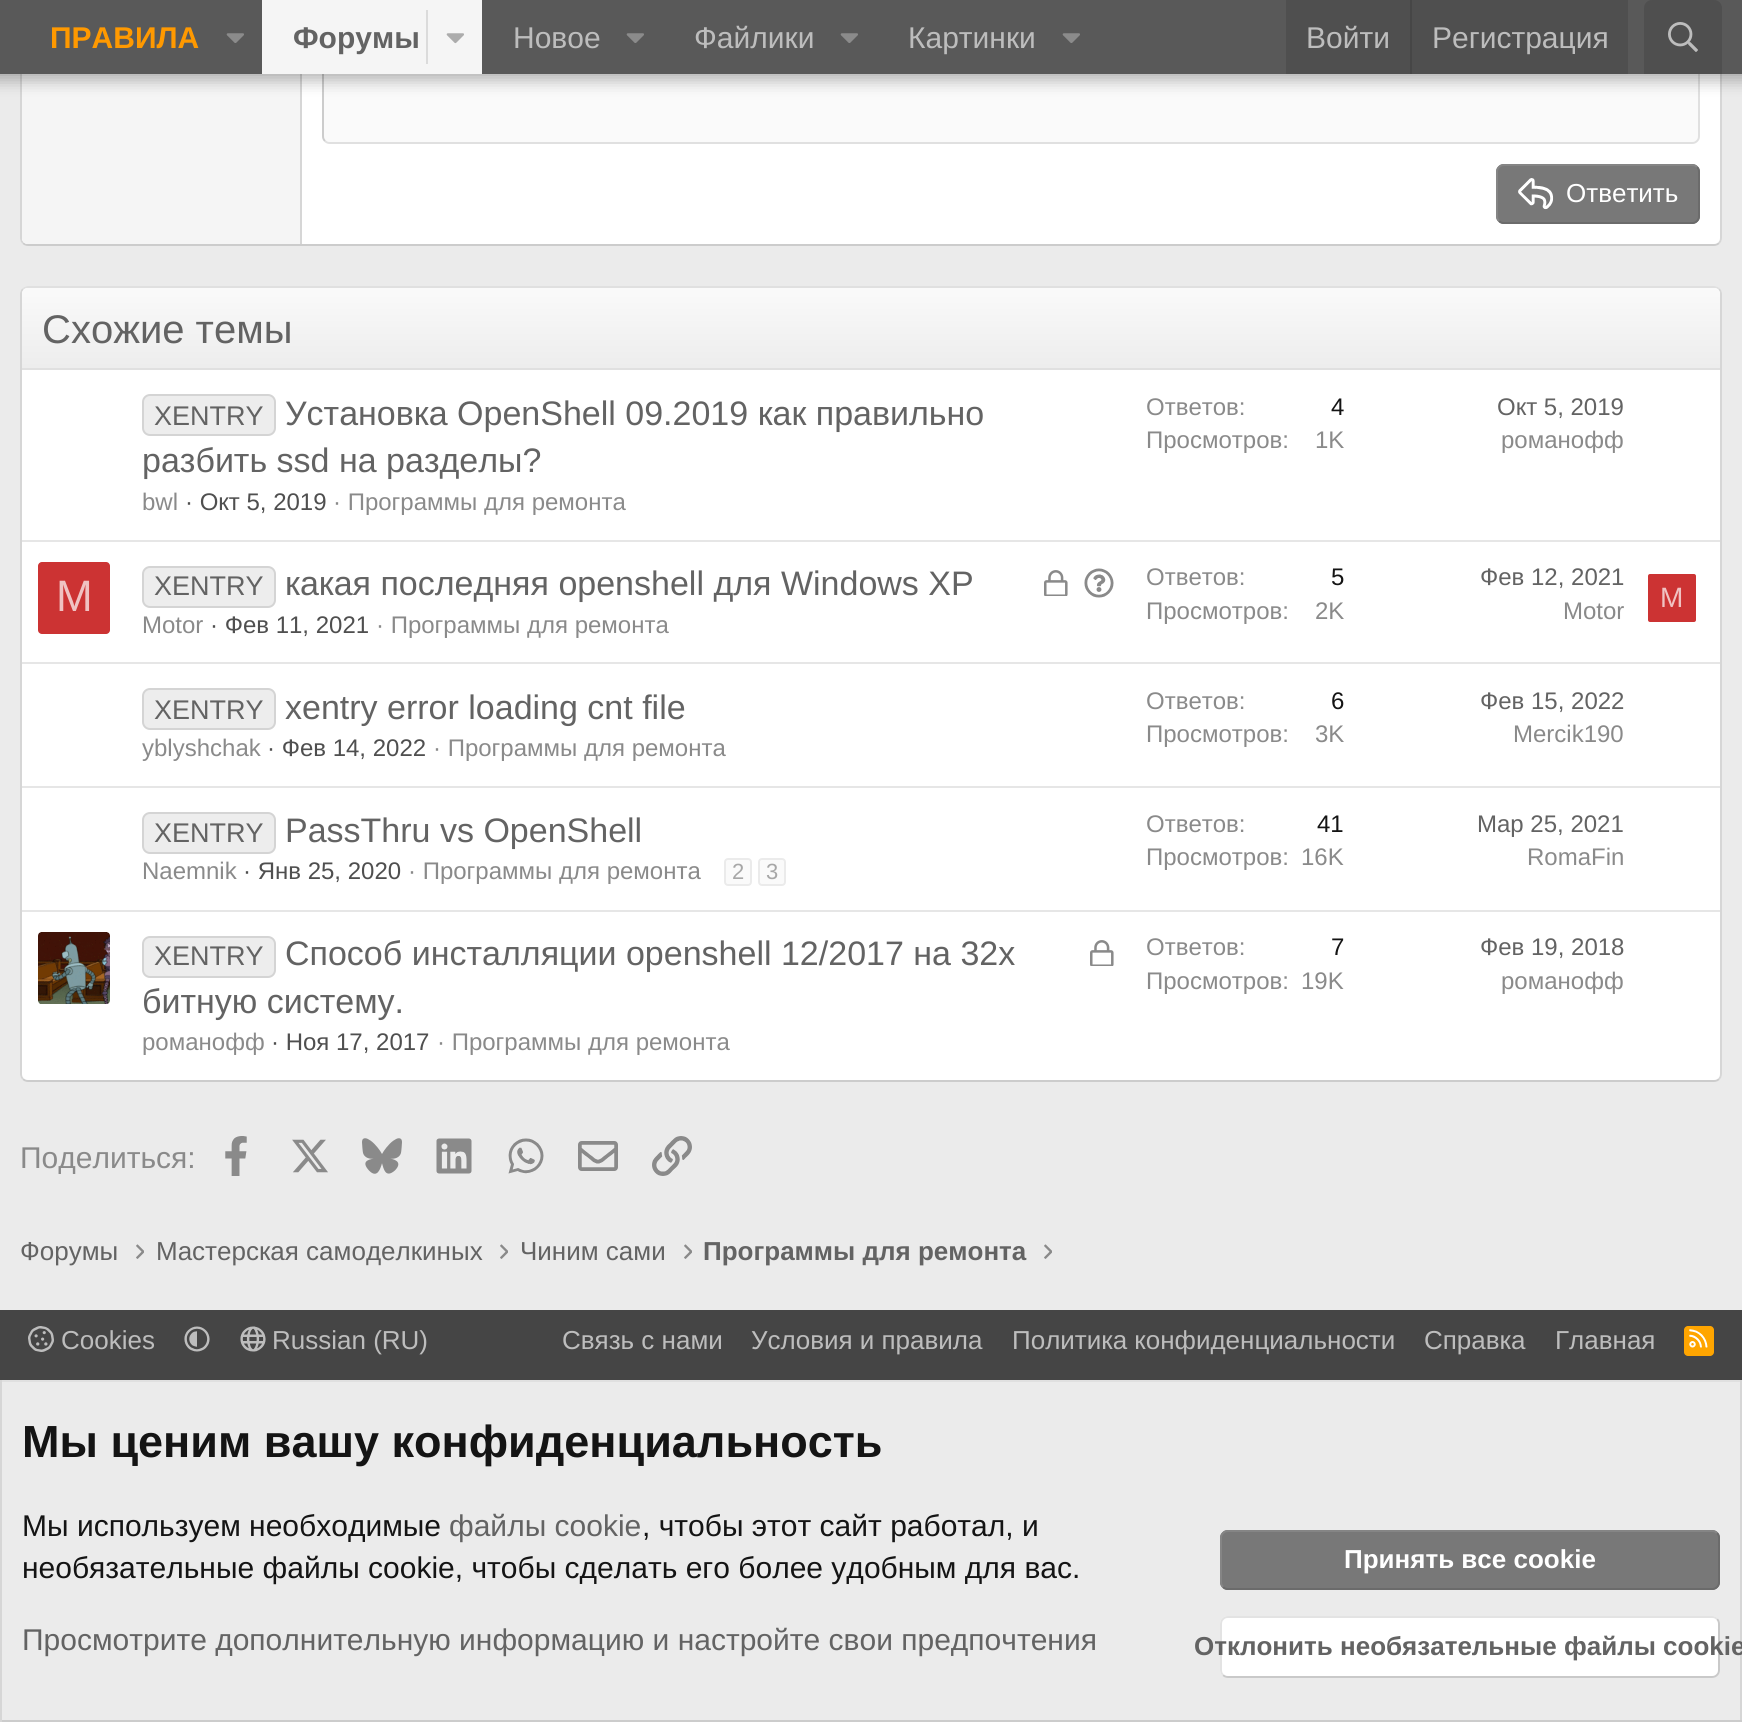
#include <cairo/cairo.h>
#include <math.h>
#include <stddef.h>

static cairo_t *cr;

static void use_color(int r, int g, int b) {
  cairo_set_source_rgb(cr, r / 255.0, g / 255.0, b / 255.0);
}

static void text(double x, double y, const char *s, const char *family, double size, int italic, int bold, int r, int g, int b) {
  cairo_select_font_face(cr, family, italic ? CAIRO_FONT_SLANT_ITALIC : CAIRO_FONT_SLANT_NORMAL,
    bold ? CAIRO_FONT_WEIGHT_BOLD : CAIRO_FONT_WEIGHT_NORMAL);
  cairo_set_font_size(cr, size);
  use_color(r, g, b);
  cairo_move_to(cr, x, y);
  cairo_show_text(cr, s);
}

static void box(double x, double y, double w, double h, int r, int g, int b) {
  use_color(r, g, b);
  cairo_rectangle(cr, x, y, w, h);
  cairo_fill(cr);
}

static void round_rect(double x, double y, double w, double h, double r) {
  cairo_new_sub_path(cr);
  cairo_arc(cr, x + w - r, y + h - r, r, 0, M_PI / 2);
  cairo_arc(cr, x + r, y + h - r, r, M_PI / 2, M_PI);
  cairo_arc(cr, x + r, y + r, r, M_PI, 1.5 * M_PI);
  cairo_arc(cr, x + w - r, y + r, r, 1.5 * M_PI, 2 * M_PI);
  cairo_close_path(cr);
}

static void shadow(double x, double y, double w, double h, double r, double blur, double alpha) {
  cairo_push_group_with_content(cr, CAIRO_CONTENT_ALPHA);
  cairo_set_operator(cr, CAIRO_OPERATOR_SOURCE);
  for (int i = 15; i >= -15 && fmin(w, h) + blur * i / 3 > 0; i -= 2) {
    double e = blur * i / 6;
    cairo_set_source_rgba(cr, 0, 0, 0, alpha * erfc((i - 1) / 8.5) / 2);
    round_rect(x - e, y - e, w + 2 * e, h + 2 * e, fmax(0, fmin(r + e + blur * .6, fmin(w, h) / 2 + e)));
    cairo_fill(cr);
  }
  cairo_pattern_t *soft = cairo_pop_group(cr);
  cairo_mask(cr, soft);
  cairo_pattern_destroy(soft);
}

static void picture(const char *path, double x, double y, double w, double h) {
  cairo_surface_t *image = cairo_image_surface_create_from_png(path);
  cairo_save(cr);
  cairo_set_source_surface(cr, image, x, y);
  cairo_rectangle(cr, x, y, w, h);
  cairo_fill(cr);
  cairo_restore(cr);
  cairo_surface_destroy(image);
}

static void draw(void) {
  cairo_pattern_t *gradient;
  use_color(235, 235, 235);
  cairo_paint(cr);
  use_color(255, 255, 255);
  round_rect(20, -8, 1702, 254, 8);
  cairo_fill(cr);
  cairo_new_path(cr);
  cairo_move_to(cr, 1719, -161);
  cairo_curve_to(cr, 1720.5, -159.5, 1721, -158, 1721, -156);
  cairo_line_to(cr, 1721, 238);
  cairo_curve_to(cr, 1721, 240, 1720.5, 241.5, 1719, 243);
  use_color(214, 214, 214);
  cairo_stroke(cr);
  cairo_new_path(cr);
  cairo_move_to(cr, 1719, 243);
  cairo_curve_to(cr, 1717.5, 244.5, 1716, 245, 1714, 245);
  cairo_line_to(cr, 28, 245);
  cairo_curve_to(cr, 26, 245, 24.5, 244.5, 23, 243);
  use_color(204, 204, 204);
  cairo_stroke(cr);
  cairo_new_path(cr);
  cairo_move_to(cr, 23, 243);
  cairo_curve_to(cr, 21.5, 241.5, 21, 240, 21, 238);
  cairo_line_to(cr, 21, -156);
  cairo_curve_to(cr, 21, -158, 21.5, -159.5, 23, -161);
  use_color(214, 214, 214);
  cairo_stroke(cr);
  use_color(245, 245, 245);
  cairo_new_path(cr);
  cairo_move_to(cr, 28, -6);
  cairo_line_to(cr, 302, -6);
  cairo_line_to(cr, 302, 244);
  cairo_line_to(cr, 28, 244);
  cairo_curve_to(cr, 24.5, 244, 22, 241.5, 22, 238);
  cairo_line_to(cr, 22, 0);
  cairo_curve_to(cr, 22, -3.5, 24.5, -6, 28, -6);
  cairo_close_path(cr);
  cairo_fill(cr);
  box(300, 74, 2, 170, 214, 214, 214);
  use_color(250, 250, 250);
  round_rect(324, -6, 1374, 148, 6);
  cairo_fill(cr);
  cairo_new_path(cr);
  cairo_move_to(cr, 1697, -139);
  cairo_curve_to(cr, 1698.5, -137.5, 1699, -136, 1699, -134);
  cairo_line_to(cr, 1699, 136);
  cairo_curve_to(cr, 1699, 138, 1698.5, 139.5, 1697, 141);
  cairo_curve_to(cr, 1695.5, 142.5, 1694, 143, 1692, 143);
  cairo_line_to(cr, 330, 143);
  cairo_curve_to(cr, 328, 143, 326.5, 142.5, 325, 141);
  use_color(224, 224, 224);
  cairo_stroke(cr);
  cairo_new_path(cr);
  cairo_move_to(cr, 325, 141);
  cairo_curve_to(cr, 323.5, 139.5, 323, 138, 323, 136);
  cairo_line_to(cr, 323, -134);
  cairo_curve_to(cr, 323, -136, 323.5, -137.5, 325, -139);
  cairo_curve_to(cr, 326.5, -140.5, 328, -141, 330, -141);
  cairo_line_to(cr, 1692, -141);
  cairo_curve_to(cr, 1694, -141, 1695.5, -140.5, 1697, -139);
  use_color(204, 204, 204);
  cairo_stroke(cr);
  use_color(0, 0, 0);
  shadow(-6, -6, 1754, 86, 0, 8, 0.3);
  box(0, 0, 1742, 74, 89, 89, 89);
  picture("img_01.png", 226, 33, 18, 10);
  box(262, 0, 220, 74, 245, 245, 245);
  box(426, 10, 2, 54, 219, 219, 219);
  picture("img_02.png", 446, 33, 18, 11);
  picture("img_01.png", 626, 33, 18, 10);
  picture("img_01.png", 840, 33, 18, 10);
  picture("img_01.png", 1062, 33, 18, 10);
  box(1286, 0, 342, 74, 79, 79, 79);
  box(1410, 0, 2, 74, 70, 70, 70);
  use_color(79, 79, 79);
  cairo_new_path(cr);
  cairo_move_to(cr, 1652, 0);
  cairo_line_to(cr, 1714, 0);
  cairo_curve_to(cr, 1718.5, 0, 1722, 3.5, 1722, 8);
  cairo_line_to(cr, 1722, 74);
  cairo_line_to(cr, 1644, 74);
  cairo_line_to(cr, 1644, 8);
  cairo_curve_to(cr, 1644, 3.5, 1647.5, 0, 1652, 0);
  cairo_close_path(cr);
  cairo_fill(cr);
  picture("img_03.png", 1668, 22, 30, 30);
  use_color(120, 120, 120);
  round_rect(1496, 164, 204, 60, 8);
  cairo_fill(cr);
  cairo_new_path(cr);
  cairo_move_to(cr, 1697, 167);
  cairo_curve_to(cr, 1698.5, 168.5, 1699, 170, 1699, 172);
  cairo_line_to(cr, 1699, 216);
  cairo_curve_to(cr, 1699, 218, 1698.5, 219.5, 1697, 221);
  cairo_curve_to(cr, 1695.5, 222.5, 1694, 223, 1692, 223);
  cairo_line_to(cr, 1504, 223);
  cairo_curve_to(cr, 1502, 223, 1500.5, 222.5, 1499, 221);
  use_color(107, 107, 107);
  cairo_stroke(cr);
  cairo_new_path(cr);
  cairo_move_to(cr, 1499, 221);
  cairo_curve_to(cr, 1497.5, 219.5, 1497, 218, 1497, 216);
  cairo_line_to(cr, 1497, 172);
  cairo_curve_to(cr, 1497, 170, 1497.5, 168.5, 1499, 167);
  cairo_curve_to(cr, 1500.5, 165.5, 1502, 165, 1504, 165);
  cairo_line_to(cr, 1692, 165);
  cairo_curve_to(cr, 1694, 165, 1695.5, 165.5, 1697, 167);
  use_color(133, 133, 133);
  cairo_stroke(cr);
  picture("img_04.png", 1518, 178, 36, 32);
  use_color(255, 255, 255);
  round_rect(20, 286, 1702, 796, 8);
  cairo_fill(cr);
  cairo_new_path(cr);
  cairo_move_to(cr, 23, 289);
  cairo_curve_to(cr, 24.5, 287.5, 26, 287, 28, 287);
  cairo_line_to(cr, 1714, 287);
  cairo_curve_to(cr, 1716, 287, 1717.5, 287.5, 1719, 289);
  use_color(224, 224, 224);
  cairo_stroke(cr);
  cairo_new_path(cr);
  cairo_move_to(cr, 1719, 289);
  cairo_curve_to(cr, 1720.5, 290.5, 1721, 292, 1721, 294);
  cairo_line_to(cr, 1721, 1074);
  cairo_curve_to(cr, 1721, 1076, 1720.5, 1077.5, 1719, 1079);
  use_color(214, 214, 214);
  cairo_stroke(cr);
  cairo_new_path(cr);
  cairo_move_to(cr, 1719, 1079);
  cairo_curve_to(cr, 1717.5, 1080.5, 1716, 1081, 1714, 1081);
  cairo_line_to(cr, 28, 1081);
  cairo_curve_to(cr, 26, 1081, 24.5, 1080.5, 23, 1079);
  use_color(204, 204, 204);
  cairo_stroke(cr);
  cairo_new_path(cr);
  cairo_move_to(cr, 23, 1079);
  cairo_curve_to(cr, 21.5, 1077.5, 21, 1076, 21, 1074);
  cairo_line_to(cr, 21, 294);
  cairo_curve_to(cr, 21, 292, 21.5, 290.5, 23, 289);
  use_color(214, 214, 214);
  cairo_stroke(cr);
  gradient = cairo_pattern_create_linear(871, 368, 871, 288);
  cairo_pattern_add_color_stop_rgba(gradient, 0, 0.929, 0.929, 0.929, 1);
  cairo_pattern_add_color_stop_rgba(gradient, 1, 0.98, 0.98, 0.98, 1);
  cairo_set_source(cr, gradient);
  cairo_pattern_destroy(gradient);
  cairo_new_path(cr);
  cairo_move_to(cr, 28, 288);
  cairo_line_to(cr, 1714, 288);
  cairo_curve_to(cr, 1717.5, 288, 1720, 290.5, 1720, 294);
  cairo_line_to(cr, 1720, 368);
  cairo_line_to(cr, 22, 368);
  cairo_line_to(cr, 22, 294);
  cairo_curve_to(cr, 22, 290.5, 24.5, 288, 28, 288);
  cairo_close_path(cr);
  cairo_fill(cr);
  box(22, 368, 1698, 2, 224, 224, 224);
  use_color(237, 237, 237);
  round_rect(143, 395, 132, 40, 7);
  cairo_fill_preserve(cr);
  use_color(212, 212, 212);
  cairo_stroke(cr);
  box(22, 540, 1698, 2, 230, 230, 230);
  use_color(204, 51, 51);
  round_rect(38, 562, 72, 72, 4);
  cairo_fill(cr);
  use_color(237, 237, 237);
  round_rect(143, 567, 132, 40, 7);
  cairo_fill_preserve(cr);
  use_color(212, 212, 212);
  cairo_stroke(cr);
  picture("img_05.png", 1044, 570, 24, 26);
  picture("img_06.png", 1084, 568, 30, 30);
  use_color(204, 51, 51);
  round_rect(1648, 574, 48, 48, 2);
  cairo_fill(cr);
  box(22, 662, 1698, 2, 230, 230, 230);
  use_color(237, 237, 237);
  round_rect(143, 689, 132, 40, 7);
  cairo_fill_preserve(cr);
  use_color(212, 212, 212);
  cairo_stroke(cr);
  box(22, 786, 1698, 2, 230, 230, 230);
  use_color(237, 237, 237);
  round_rect(143, 813, 132, 40, 7);
  cairo_fill_preserve(cr);
  use_color(212, 212, 212);
  cairo_stroke(cr);
  use_color(250, 250, 250);
  round_rect(725, 859, 26, 26, 3);
  cairo_fill_preserve(cr);
  use_color(235, 235, 235);
  cairo_stroke(cr);
  use_color(250, 250, 250);
  round_rect(759, 859, 26, 26, 3);
  cairo_fill_preserve(cr);
  use_color(235, 235, 235);
  cairo_stroke(cr);
  box(22, 910, 1698, 2, 230, 230, 230);
  picture("img_07.png", 38, 932, 72, 72);
  use_color(237, 237, 237);
  round_rect(143, 937, 132, 40, 7);
  cairo_fill_preserve(cr);
  use_color(212, 212, 212);
  cairo_stroke(cr);
  picture("img_05.png", 1090, 940, 24, 26);
  picture("img_08.png", 225, 1136, 22, 40);
  picture("img_09.png", 292, 1139, 36, 34);
  picture("img_10.png", 362, 1138, 40, 36);
  picture("img_11.png", 436, 1138, 36, 36);
  picture("img_12.png", 508, 1138, 36, 36);
  picture("img_13.png", 578, 1141, 40, 30);
  picture("img_14.png", 652, 1136, 40, 40);
  picture("img_15.png", 136, 1244, 8, 15);
  picture("img_15.png", 500, 1244, 8, 15);
  picture("img_15.png", 684, 1244, 8, 15);
  picture("img_15.png", 1044, 1244, 8, 15);
  box(0, 1310, 1742, 70, 69, 69, 69);
  picture("img_16.png", 28, 1326, 26, 26);
  picture("img_17.png", 184, 1326, 26, 26);
  picture("img_18.png", 240, 1326, 26, 26);
  use_color(255, 165, 0);
  round_rect(1684, 1326, 30, 30, 4);
  cairo_fill(cr);
  picture("img_19.png", 1689, 1329, 19, 19);
  box(0, 1380, 1742, 2, 224, 224, 224);
  box(1740, 1380, 2, 342, 214, 214, 214);
  box(0, 1720, 1742, 2, 204, 204, 204);
  box(0, 1380, 2, 342, 214, 214, 214);
  use_color(120, 120, 120);
  round_rect(1220, 1530, 500, 60, 8);
  cairo_fill(cr);
  cairo_new_path(cr);
  cairo_move_to(cr, 1717, 1533);
  cairo_curve_to(cr, 1718.5, 1534.5, 1719, 1536, 1719, 1538);
  cairo_line_to(cr, 1719, 1582);
  cairo_curve_to(cr, 1719, 1584, 1718.5, 1585.5, 1717, 1587);
  cairo_curve_to(cr, 1715.5, 1588.5, 1714, 1589, 1712, 1589);
  cairo_line_to(cr, 1228, 1589);
  cairo_curve_to(cr, 1226, 1589, 1224.5, 1588.5, 1223, 1587);
  use_color(107, 107, 107);
  cairo_stroke(cr);
  cairo_new_path(cr);
  cairo_move_to(cr, 1223, 1587);
  cairo_curve_to(cr, 1221.5, 1585.5, 1221, 1584, 1221, 1582);
  cairo_line_to(cr, 1221, 1538);
  cairo_curve_to(cr, 1221, 1536, 1221.5, 1534.5, 1223, 1533);
  cairo_curve_to(cr, 1224.5, 1531.5, 1226, 1531, 1228, 1531);
  cairo_line_to(cr, 1712, 1531);
  cairo_curve_to(cr, 1714, 1531, 1715.5, 1531.5, 1717, 1533);
  use_color(133, 133, 133);
  cairo_stroke(cr);
  use_color(255, 255, 255);
  round_rect(1220, 1616, 500, 62, 8);
  cairo_fill(cr);
  cairo_new_path(cr);
  cairo_move_to(cr, 1717, 1619);
  cairo_curve_to(cr, 1718.5, 1620.5, 1719, 1622, 1719, 1624);
  cairo_line_to(cr, 1719, 1670);
  cairo_curve_to(cr, 1719, 1672, 1718.5, 1673.5, 1717, 1675);
  cairo_curve_to(cr, 1715.5, 1676.5, 1714, 1677, 1712, 1677);
  cairo_line_to(cr, 1228, 1677);
  cairo_curve_to(cr, 1226, 1677, 1224.5, 1676.5, 1223, 1675);
  use_color(201, 201, 201);
  cairo_stroke(cr);
  cairo_new_path(cr);
  cairo_move_to(cr, 1223, 1675);
  cairo_curve_to(cr, 1221.5, 1673.5, 1221, 1672, 1221, 1670);
  cairo_line_to(cr, 1221, 1624);
  cairo_curve_to(cr, 1221, 1622, 1221.5, 1620.5, 1223, 1619);
  cairo_curve_to(cr, 1224.5, 1617.5, 1226, 1617, 1228, 1617);
  cairo_line_to(cr, 1712, 1617);
  cairo_curve_to(cr, 1714, 1617, 1715.5, 1617.5, 1717, 1619);
  use_color(227, 227, 227);
  cairo_stroke(cr);
  text(50, 48, "ПРАВИЛА", "Liberation Sans", 30, 0, 1, 255, 153, 0);
  text(293, 48, "Форумы", "Liberation Sans", 30, 0, 1, 99, 99, 99);
  text(513, 48, "Новое", "Liberation Sans", 30, 0, 0, 189, 189, 189);
  text(694, 48, "Файлики", "Liberation Sans", 30, 0, 0, 189, 189, 189);
  text(908, 48, "Картинки", "Liberation Sans", 30, 0, 0, 189, 189, 189);
  text(1306, 48, "Войти", "Liberation Sans", 30, 0, 0, 189, 189, 189);
  text(1432, 48, "Регистрация", "Liberation Sans", 30, 0, 0, 189, 189, 189);
  text(1566, 202, "Ответить", "Liberation Sans", 26, 0, 0, 255, 255, 255);
  text(42, 343, "Схожие темы", "Liberation Sans", 40, 0, 0, 99, 99, 99);
  text(154, 425, "XENTRY", "Liberation Sans", 27, 0, 0, 99, 99, 99);
  text(285, 425, "Установка OpenShell 09.2019 как правильно", "Liberation Sans", 34, 0, 0, 99, 99, 99);
  text(142, 472, "разбить ssd на разделы?", "Liberation Sans", 34, 0, 0, 99, 99, 99);
  text(142, 510, "bwl", "Liberation Sans", 24, 0, 0, 138, 138, 138);
  text(185, 510, "· Окт 5, 2019", "Liberation Sans", 24, 0, 0, 79, 79, 79);
  text(333, 510, "· Программы для ремонта", "Liberation Sans", 24, 0, 0, 138, 138, 138);
  text(1146, 415, "Ответов:", "Liberation Sans", 24, 0, 0, 138, 138, 138);
  text(1331, 415, "4", "Liberation Sans", 24, 0, 0, 20, 20, 20);
  text(1146, 448, "Просмотров:", "Liberation Sans", 24, 0, 0, 138, 138, 138);
  text(1315, 448, "1K", "Liberation Sans", 24, 0, 0, 138, 138, 138);
  text(1497, 415, "Окт 5, 2019", "Liberation Sans", 24, 0, 0, 99, 99, 99);
  text(1501, 448, "романофф", "Liberation Sans", 24, 0, 0, 138, 138, 138);
  text(56, 611, "M", "Liberation Sans", 44, 0, 0, 240, 194, 194);
  text(154, 595, "XENTRY", "Liberation Sans", 27, 0, 0, 99, 99, 99);
  text(285, 595, "какая последняя openshell для Windows XP", "Liberation Sans", 34, 0, 0, 99, 99, 99);
  text(142, 633, "Motor", "Liberation Sans", 24, 0, 0, 138, 138, 138);
  text(210, 633, "· Фев 11, 2021", "Liberation Sans", 24, 0, 0, 79, 79, 79);
  text(376, 633, "· Программы для ремонта", "Liberation Sans", 24, 0, 0, 138, 138, 138);
  text(1146, 585, "Ответов:", "Liberation Sans", 24, 0, 0, 138, 138, 138);
  text(1331, 585, "5", "Liberation Sans", 24, 0, 0, 20, 20, 20);
  text(1146, 619, "Просмотров:", "Liberation Sans", 24, 0, 0, 138, 138, 138);
  text(1315, 619, "2K", "Liberation Sans", 24, 0, 0, 138, 138, 138);
  text(1480, 585, "Фев 12, 2021", "Liberation Sans", 24, 0, 0, 99, 99, 99);
  text(1563, 619, "Motor", "Liberation Sans", 24, 0, 0, 138, 138, 138);
  text(1660, 607, "M", "Liberation Sans", 28, 0, 0, 240, 194, 194);
  text(154, 719, "XENTRY", "Liberation Sans", 27, 0, 0, 99, 99, 99);
  text(285, 719, "xentry error loading cnt file", "Liberation Sans", 34, 0, 0, 99, 99, 99);
  text(142, 756, "yblyshchak", "Liberation Sans", 24, 0, 0, 138, 138, 138);
  text(267, 756, "· Фев 14, 2022", "Liberation Sans", 24, 0, 0, 79, 79, 79);
  text(433, 756, "· Программы для ремонта", "Liberation Sans", 24, 0, 0, 138, 138, 138);
  text(1146, 709, "Ответов:", "Liberation Sans", 24, 0, 0, 138, 138, 138);
  text(1331, 709, "6", "Liberation Sans", 24, 0, 0, 20, 20, 20);
  text(1146, 742, "Просмотров:", "Liberation Sans", 24, 0, 0, 138, 138, 138);
  text(1315, 742, "3K", "Liberation Sans", 24, 0, 0, 138, 138, 138);
  text(1480, 709, "Фев 15, 2022", "Liberation Sans", 24, 0, 0, 99, 99, 99);
  text(1513, 742, "Mercik190", "Liberation Sans", 24, 0, 0, 138, 138, 138);
  text(154, 842, "XENTRY", "Liberation Sans", 27, 0, 0, 99, 99, 99);
  text(285, 842, "PassThru vs OpenShell", "Liberation Sans", 34, 0, 0, 99, 99, 99);
  text(142, 879, "Naemnik", "Liberation Sans", 24, 0, 0, 138, 138, 138);
  text(243, 879, "· Янв 25, 2020", "Liberation Sans", 24, 0, 0, 79, 79, 79);
  text(408, 879, "· Программы для ремонта", "Liberation Sans", 24, 0, 0, 138, 138, 138);
  text(732, 879, "2", "Liberation Sans", 22, 0, 0, 167, 167, 167);
  text(766, 879, "3", "Liberation Sans", 22, 0, 0, 167, 167, 167);
  text(1146, 832, "Ответов:", "Liberation Sans", 24, 0, 0, 138, 138, 138);
  text(1317, 832, "41", "Liberation Sans", 24, 0, 0, 20, 20, 20);
  text(1146, 865, "Просмотров:", "Liberation Sans", 24, 0, 0, 138, 138, 138);
  text(1301, 865, "16K", "Liberation Sans", 24, 0, 0, 138, 138, 138);
  text(1477, 832, "Мар 25, 2021", "Liberation Sans", 24, 0, 0, 99, 99, 99);
  text(1527, 865, "RomaFin", "Liberation Sans", 24, 0, 0, 138, 138, 138);
  text(154, 965, "XENTRY", "Liberation Sans", 27, 0, 0, 99, 99, 99);
  text(285, 965, "Способ инсталляции openshell 12/2017 на 32х", "Liberation Sans", 34, 0, 0, 99, 99, 99);
  text(142, 1013, "битную систему.", "Liberation Sans", 34, 0, 0, 99, 99, 99);
  text(142, 1050, "романофф", "Liberation Sans", 24, 0, 0, 138, 138, 138);
  text(271, 1050, "· Ноя 17, 2017", "Liberation Sans", 24, 0, 0, 79, 79, 79);
  text(437, 1050, "· Программы для ремонта", "Liberation Sans", 24, 0, 0, 138, 138, 138);
  text(1146, 955, "Ответов:", "Liberation Sans", 24, 0, 0, 138, 138, 138);
  text(1331, 955, "7", "Liberation Sans", 24, 0, 0, 20, 20, 20);
  text(1146, 989, "Просмотров:", "Liberation Sans", 24, 0, 0, 138, 138, 138);
  text(1301, 989, "19K", "Liberation Sans", 24, 0, 0, 138, 138, 138);
  text(1480, 955, "Фев 19, 2018", "Liberation Sans", 24, 0, 0, 99, 99, 99);
  text(1501, 989, "романофф", "Liberation Sans", 24, 0, 0, 138, 138, 138);
  text(20, 1168, "Поделиться:", "Liberation Sans", 30, 0, 0, 138, 138, 138);
  text(20, 1260, "Форумы", "Liberation Sans", 26, 0, 0, 99, 99, 99);
  text(156, 1260, "Мастерская самоделкиных", "Liberation Sans", 26, 0, 0, 99, 99, 99);
  text(520, 1260, "Чиним сами", "Liberation Sans", 26, 0, 0, 99, 99, 99);
  text(703, 1260, "Программы для ремонта", "Liberation Sans", 26, 0, 1, 99, 99, 99);
  text(61, 1349, "Cookies", "Liberation Sans", 26, 0, 0, 189, 189, 189);
  text(272, 1349, "Russian (RU)", "Liberation Sans", 26, 0, 0, 189, 189, 189);
  text(562, 1349, "Связь с нами", "Liberation Sans", 26, 0, 0, 189, 189, 189);
  text(751, 1349, "Условия и правила", "Liberation Sans", 26, 0, 0, 189, 189, 189);
  text(1012, 1349, "Политика конфиденциальности", "Liberation Sans", 26, 0, 0, 189, 189, 189);
  text(1424, 1349, "Справка", "Liberation Sans", 26, 0, 0, 189, 189, 189);
  text(1555, 1349, "Главная", "Liberation Sans", 26, 0, 0, 189, 189, 189);
  text(22, 1457, "Мы ценим вашу конфиденциальность", "Liberation Sans", 45, 0, 1, 20, 20, 20);
  text(22, 1536, "Мы используем необходимые", "Liberation Sans", 30, 0, 0, 20, 20, 20);
  text(449, 1536, "файлы cookie", "Liberation Sans", 30, 0, 0, 99, 99, 99);
  text(642, 1536, ", чтобы этот сайт работал, и", "Liberation Sans", 30, 0, 0, 20, 20, 20);
  text(22, 1578, "необязательные файлы cookie, чтобы сделать его более удобным для вас.", "Liberation Sans", 30, 0, 0, 20, 20, 20);
  text(22, 1650, "Просмотрите дополнительную информацию и настройте свои предпочтения", "Liberation Sans", 30, 0, 0, 99, 99, 99);
  text(1344, 1568, "Принять все cookie", "Liberation Sans", 26, 0, 1, 255, 255, 255);
  text(1194, 1655, "Отклонить необязательные файлы cookie", "Liberation Sans", 26, 0, 1, 99, 99, 99);
}

int main(void) {
  cairo_surface_t *surface = cairo_image_surface_create(CAIRO_FORMAT_RGB24, 1742, 1722);
  cr = cairo_create(surface);
  cairo_font_options_t *options = cairo_font_options_create();
  cairo_font_options_set_hint_metrics(options, CAIRO_HINT_METRICS_OFF);
  cairo_font_options_set_hint_style(options, CAIRO_HINT_STYLE_NONE);
  cairo_set_font_options(cr, options);
  cairo_set_miter_limit(cr, 4);
  draw();
  cairo_surface_write_to_png(surface, "out.png");
  cairo_font_options_destroy(options);
  cairo_destroy(cr);
  cairo_surface_destroy(surface);
  return 0;
}
